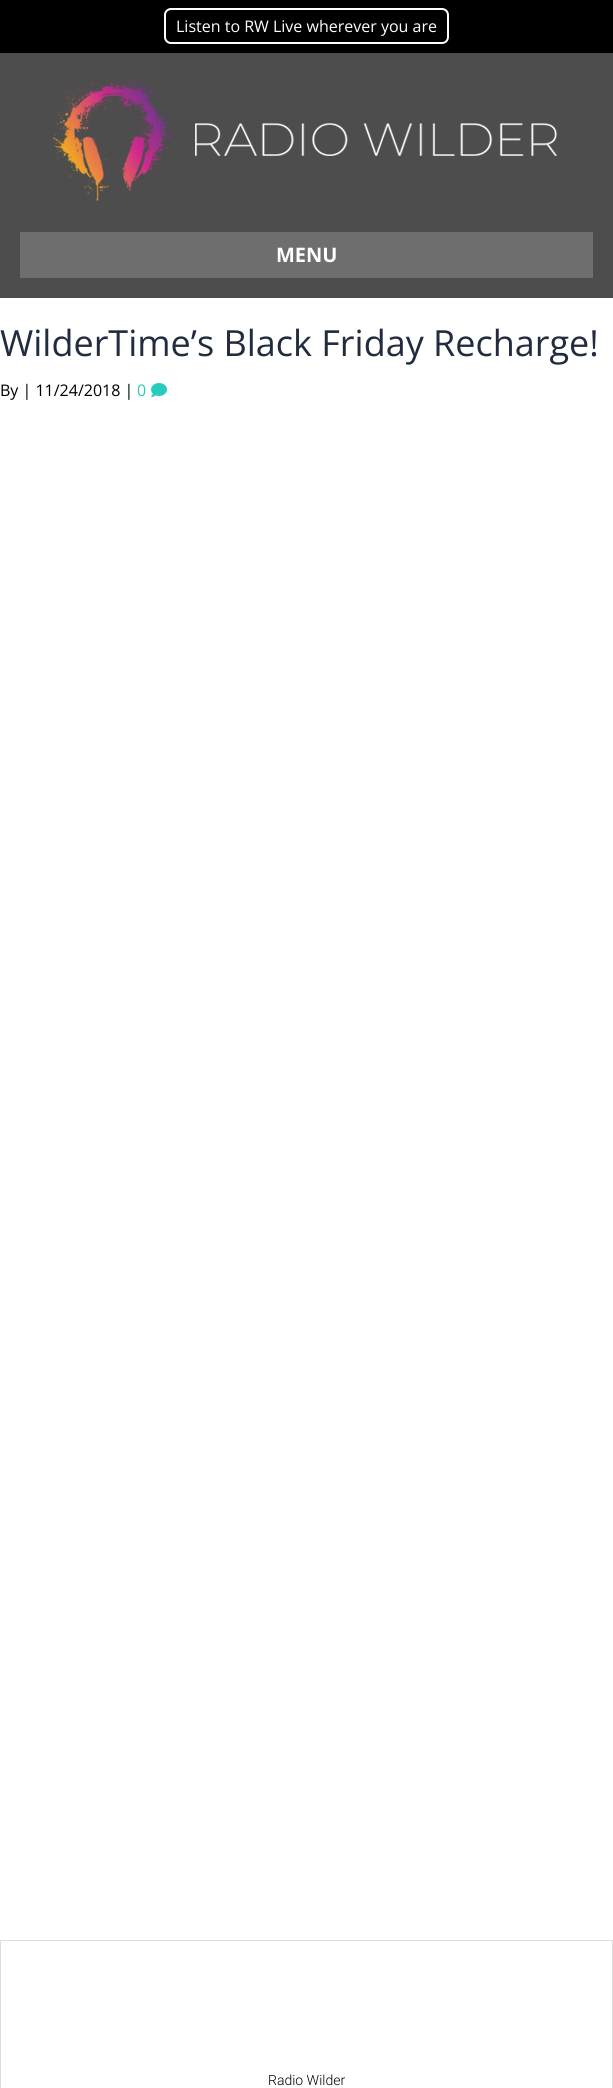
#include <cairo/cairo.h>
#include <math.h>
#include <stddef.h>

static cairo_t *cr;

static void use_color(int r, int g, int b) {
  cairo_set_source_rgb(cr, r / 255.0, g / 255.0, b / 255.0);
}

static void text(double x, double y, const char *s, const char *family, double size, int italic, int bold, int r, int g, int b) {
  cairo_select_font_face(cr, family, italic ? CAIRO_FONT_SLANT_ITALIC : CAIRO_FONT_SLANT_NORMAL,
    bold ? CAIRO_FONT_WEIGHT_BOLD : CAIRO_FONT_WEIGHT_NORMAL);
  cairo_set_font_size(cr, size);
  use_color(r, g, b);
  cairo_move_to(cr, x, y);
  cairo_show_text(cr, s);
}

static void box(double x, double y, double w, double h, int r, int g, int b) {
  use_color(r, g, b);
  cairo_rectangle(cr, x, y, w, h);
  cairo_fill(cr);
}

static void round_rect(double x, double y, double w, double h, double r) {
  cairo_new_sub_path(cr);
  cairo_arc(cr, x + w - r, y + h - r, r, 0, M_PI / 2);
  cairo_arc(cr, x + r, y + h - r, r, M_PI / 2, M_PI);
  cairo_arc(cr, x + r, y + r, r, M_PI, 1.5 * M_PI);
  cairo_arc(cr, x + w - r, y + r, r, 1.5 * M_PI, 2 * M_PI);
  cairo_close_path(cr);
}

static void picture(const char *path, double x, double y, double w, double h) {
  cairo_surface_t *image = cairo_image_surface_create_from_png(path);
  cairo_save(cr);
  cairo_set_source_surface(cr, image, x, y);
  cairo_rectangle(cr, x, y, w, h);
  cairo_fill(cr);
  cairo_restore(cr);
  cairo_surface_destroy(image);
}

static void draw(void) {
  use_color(255, 255, 255);
  cairo_paint(cr);
  box(0, 0, 613, 53, 0, 0, 0);
  round_rect(165, 9, 283, 34, 6);
  use_color(255, 255, 255);
  cairo_stroke(cr);
  box(0, 53, 613, 245, 77, 77, 77);
  picture("img_01.png", 53, 73, 504, 128);
  box(20, 232, 573, 46, 110, 110, 110);
  picture("img_02.png", 151, 383, 16, 14);
  cairo_rectangle(cr, 0.5, 1940.5, 612, 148);
  use_color(221, 221, 221);
  cairo_set_line_width(cr, 1);
  cairo_stroke(cr);
  text(176, 32, "Listen to RW Live wherever you are", "Open Sans", 16, 0, 0, 255, 255, 255);
  text(276, 262, "MENU", "Open Sans", 20, 0, 1, 255, 255, 255);
  text(0, 356, "WilderTime’s Black Friday Recharge!", "Open Sans", 36, 0, 0, 33, 44, 62);
  text(0, 396, "By | 11/24/2018 |", "Open Sans", 16, 0, 0, 0, 0, 0);
  text(137, 396, "0", "Open Sans", 16, 0, 0, 40, 204, 187);
  text(268, 2085, "Radio Wilder", "Roboto Light", 14, 0, 0, 0, 0, 0);
}

int main(void) {
  cairo_surface_t *surface = cairo_image_surface_create(CAIRO_FORMAT_RGB24, 613, 2088);
  cr = cairo_create(surface);
  cairo_font_options_t *options = cairo_font_options_create();
  cairo_font_options_set_hint_metrics(options, CAIRO_HINT_METRICS_OFF);
  cairo_font_options_set_hint_style(options, CAIRO_HINT_STYLE_NONE);
  cairo_set_font_options(cr, options);
  cairo_set_miter_limit(cr, 4);
  draw();
  cairo_surface_write_to_png(surface, "out.png");
  cairo_font_options_destroy(options);
  cairo_destroy(cr);
  cairo_surface_destroy(surface);
  return 0;
}
